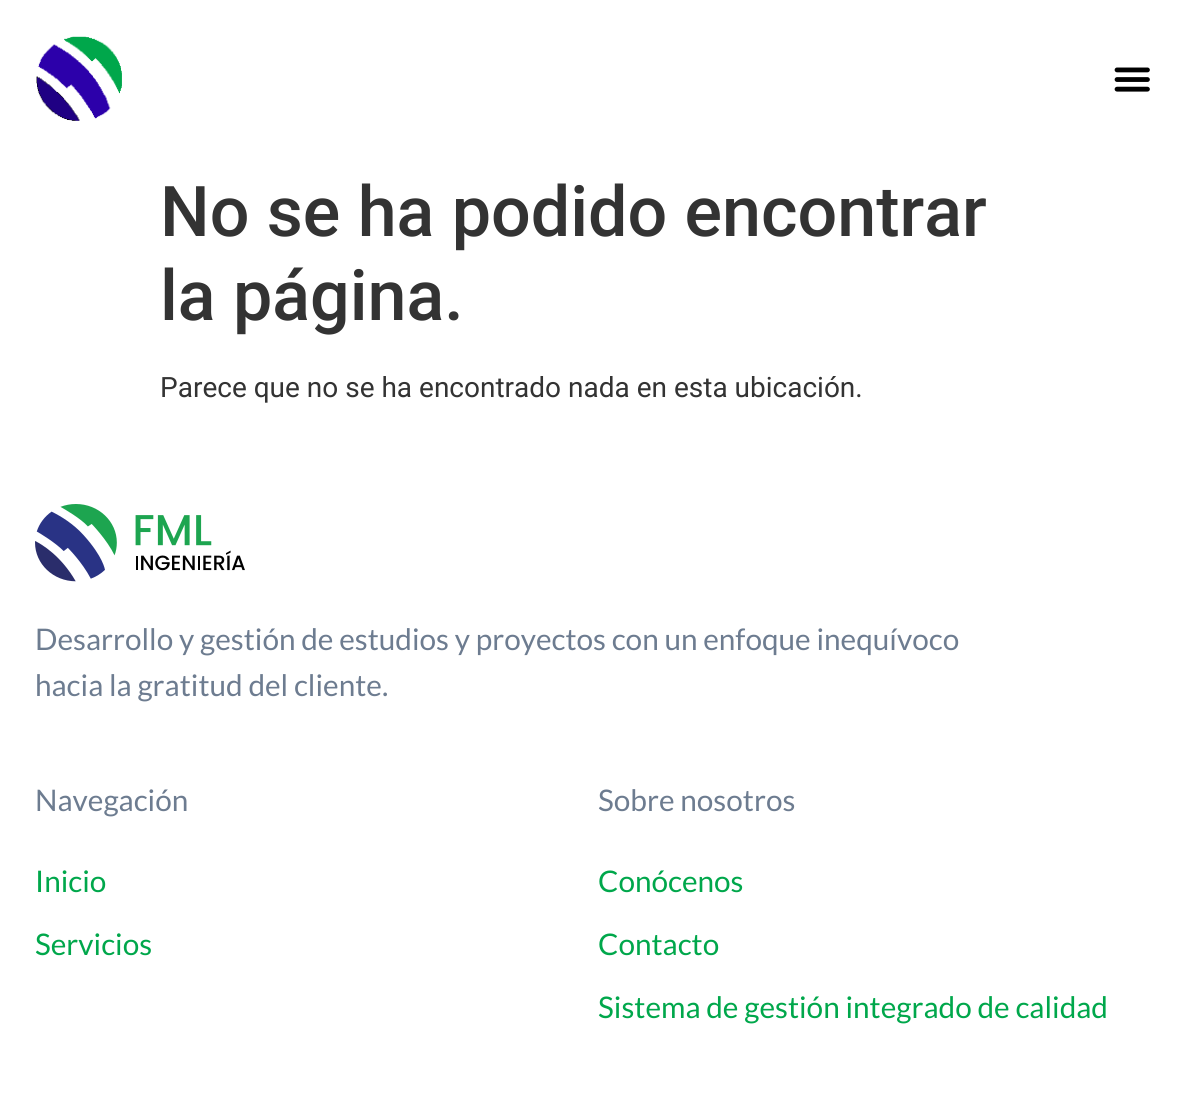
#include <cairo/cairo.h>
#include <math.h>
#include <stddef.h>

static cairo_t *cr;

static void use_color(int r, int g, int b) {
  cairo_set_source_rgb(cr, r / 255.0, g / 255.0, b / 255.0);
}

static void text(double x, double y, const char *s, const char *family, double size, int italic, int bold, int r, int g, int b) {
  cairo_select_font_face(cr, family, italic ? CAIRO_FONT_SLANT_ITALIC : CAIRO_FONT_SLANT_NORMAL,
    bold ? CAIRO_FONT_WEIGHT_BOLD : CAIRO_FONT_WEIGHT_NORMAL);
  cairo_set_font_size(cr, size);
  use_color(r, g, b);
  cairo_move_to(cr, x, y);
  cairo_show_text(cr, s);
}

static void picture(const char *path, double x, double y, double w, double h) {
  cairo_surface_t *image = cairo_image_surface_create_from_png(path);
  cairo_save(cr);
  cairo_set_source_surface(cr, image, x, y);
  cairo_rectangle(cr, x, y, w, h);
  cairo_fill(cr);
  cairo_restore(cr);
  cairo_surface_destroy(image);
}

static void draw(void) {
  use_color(255, 255, 255);
  cairo_paint(cr);
  picture("img_01.png", 36, 36, 86, 85);
  picture("img_02.png", 1114, 67, 36, 25);
  picture("img_03.png", 35, 504, 210, 78);
  text(160, 236, "No se ha podido encontrar", "Roboto Medium", 70, 0, 0, 51, 51, 51);
  text(160, 320, "la página.", "Roboto Medium", 70, 0, 0, 51, 51, 51);
  text(160, 397, "Parece que no se ha encontrado nada en esta ubicación.", "Roboto", 28, 0, 0, 51, 51, 51);
  text(35, 650, "Desarrollo y gestión de estudios y proyectos con un enfoque inequívoco", "Lato", 29.75, 0, 0, 109, 124, 144);
  text(35, 696, "hacia la gratitud del cliente.", "Lato", 29.75, 0, 0, 109, 124, 144);
  text(35, 811, "Navegación", "Lato", 29.75, 0, 0, 109, 124, 144);
  text(35, 892, "Inicio", "Lato", 29.75, 0, 0, 0, 167, 75);
  text(35, 955, "Servicios", "Lato", 29.75, 0, 0, 0, 167, 75);
  text(598, 811, "Sobre nosotros", "Lato", 29.75, 0, 0, 109, 124, 144);
  text(598, 892, "Conócenos", "Lato", 29.75, 0, 0, 0, 167, 75);
  text(598, 955, "Contacto", "Lato", 29.75, 0, 0, 0, 167, 75);
  text(598, 1018, "Sistema de gestión integrado de calidad", "Lato", 29.75, 0, 0, 0, 167, 75);
}

int main(void) {
  cairo_surface_t *surface = cairo_image_surface_create(CAIRO_FORMAT_RGB24, 1195, 1110);
  cr = cairo_create(surface);
  cairo_font_options_t *options = cairo_font_options_create();
  cairo_font_options_set_hint_metrics(options, CAIRO_HINT_METRICS_OFF);
  cairo_font_options_set_hint_style(options, CAIRO_HINT_STYLE_NONE);
  cairo_set_font_options(cr, options);
  cairo_set_miter_limit(cr, 4);
  draw();
  cairo_surface_write_to_png(surface, "out.png");
  cairo_font_options_destroy(options);
  cairo_destroy(cr);
  cairo_surface_destroy(surface);
  return 0;
}
